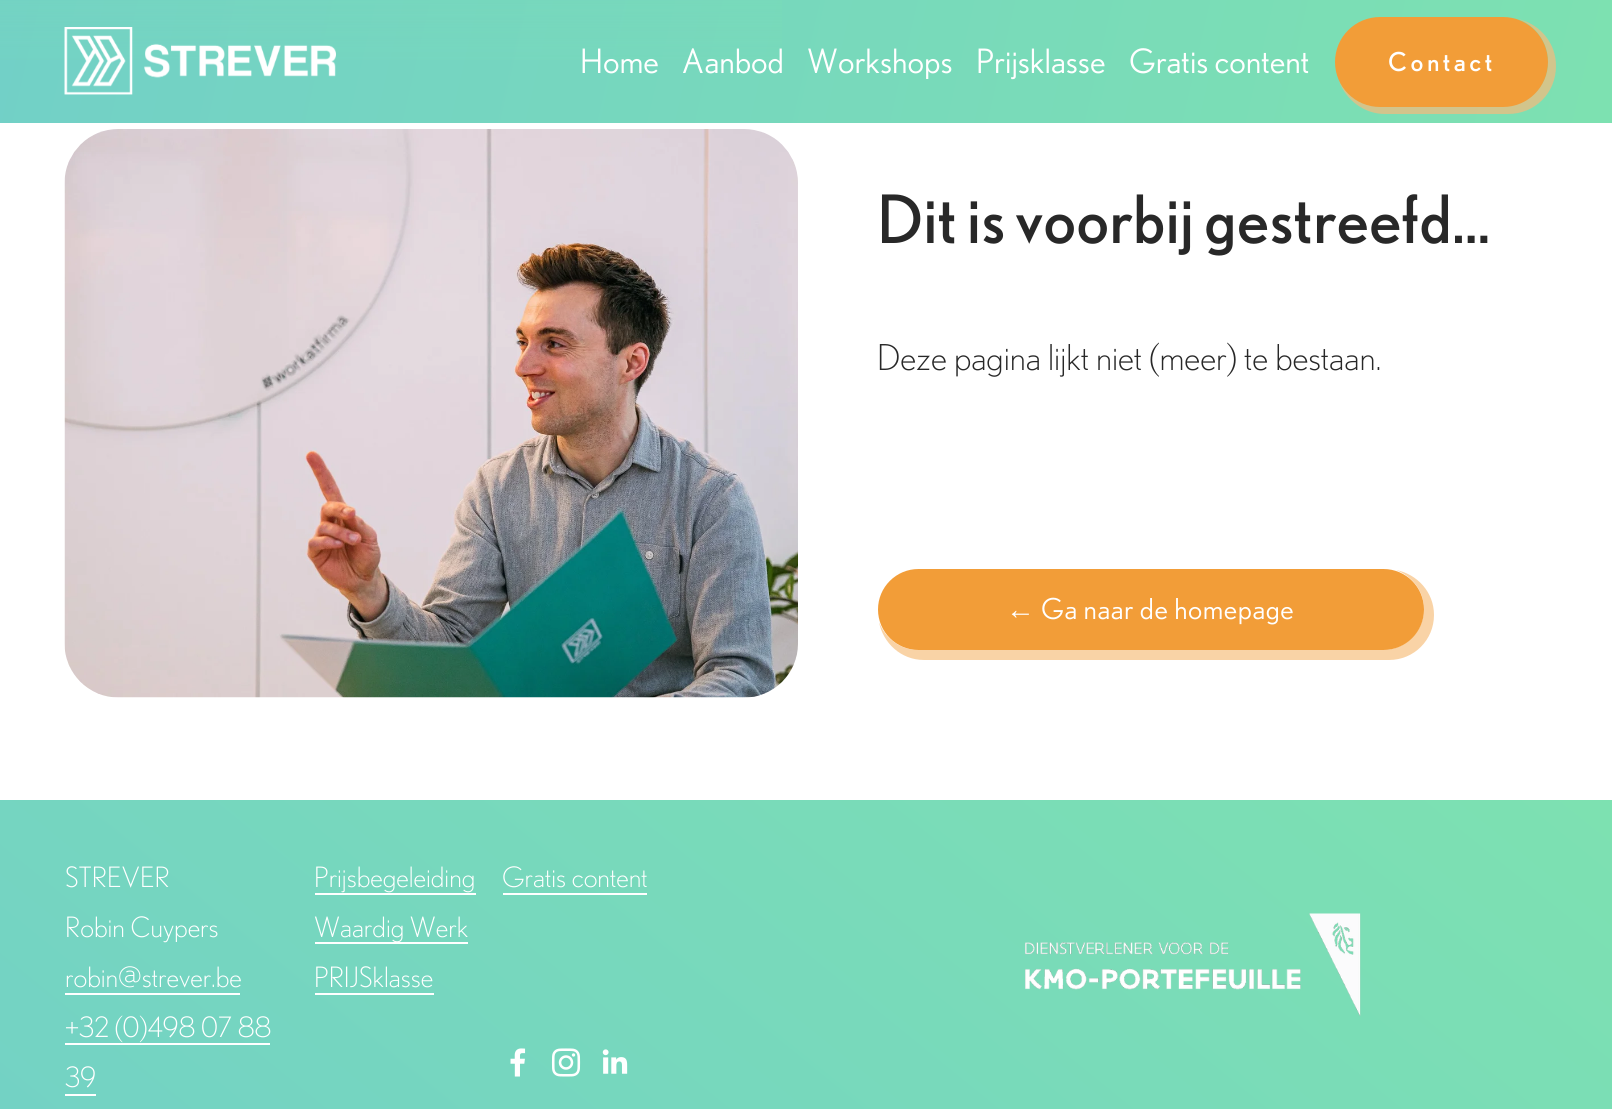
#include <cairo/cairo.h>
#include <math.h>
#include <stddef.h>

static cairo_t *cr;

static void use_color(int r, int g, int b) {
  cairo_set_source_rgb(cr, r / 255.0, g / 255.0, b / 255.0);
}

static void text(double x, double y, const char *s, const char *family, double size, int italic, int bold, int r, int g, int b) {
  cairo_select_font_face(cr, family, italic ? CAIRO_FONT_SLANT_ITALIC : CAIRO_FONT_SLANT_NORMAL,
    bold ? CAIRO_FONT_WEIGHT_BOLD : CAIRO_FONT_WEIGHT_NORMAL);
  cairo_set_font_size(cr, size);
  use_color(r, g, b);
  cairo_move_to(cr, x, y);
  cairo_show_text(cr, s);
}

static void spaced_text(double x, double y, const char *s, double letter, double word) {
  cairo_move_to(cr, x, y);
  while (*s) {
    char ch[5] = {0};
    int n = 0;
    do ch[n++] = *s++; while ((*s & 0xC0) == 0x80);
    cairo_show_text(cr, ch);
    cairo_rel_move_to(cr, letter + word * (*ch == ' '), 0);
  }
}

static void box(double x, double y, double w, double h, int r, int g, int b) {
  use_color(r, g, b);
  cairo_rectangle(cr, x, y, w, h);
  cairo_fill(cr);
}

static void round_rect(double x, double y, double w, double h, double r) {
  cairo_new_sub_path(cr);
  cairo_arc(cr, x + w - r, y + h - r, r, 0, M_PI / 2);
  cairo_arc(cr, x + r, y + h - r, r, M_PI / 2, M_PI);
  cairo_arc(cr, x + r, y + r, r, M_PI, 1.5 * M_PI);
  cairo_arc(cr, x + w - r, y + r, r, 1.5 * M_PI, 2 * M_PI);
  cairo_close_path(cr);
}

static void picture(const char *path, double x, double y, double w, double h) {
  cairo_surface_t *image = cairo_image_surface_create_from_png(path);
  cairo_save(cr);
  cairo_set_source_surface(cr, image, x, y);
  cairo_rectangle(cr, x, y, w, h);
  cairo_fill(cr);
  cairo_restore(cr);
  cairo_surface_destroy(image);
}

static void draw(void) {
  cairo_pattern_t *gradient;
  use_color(255, 255, 255);
  cairo_paint(cr);
  gradient = cairo_pattern_create_linear(1585, 241, 27, -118);
  cairo_pattern_add_color_stop_rgba(gradient, 0, 0.49, 0.882, 0.694, 1);
  cairo_pattern_add_color_stop_rgba(gradient, 1, 0.447, 0.816, 0.78, 1);
  cairo_set_source(cr, gradient);
  cairo_pattern_destroy(gradient);
  cairo_rectangle(cr, 0, 0, 1612, 123);
  cairo_fill(cr);
  gradient = cairo_pattern_create_linear(806, 0, 806, 123);
  cairo_pattern_add_color_stop_rgba(gradient, 0, 0.49, 0.882, 0.694, 0.18);
  cairo_pattern_add_color_stop_rgba(gradient, 1, 0.49, 0.882, 0.694, 0);
  cairo_set_source(cr, gradient);
  cairo_pattern_destroy(gradient);
  cairo_rectangle(cr, 0, 0, 782, 60);
  cairo_fill(cr);
  picture("img_01.png", 64, 27, 272, 68);
  cairo_set_source_rgba(cr, 0.988, 0.722, 0.475, 0.67);
  cairo_new_path(cr);
  cairo_move_to(cr, 1339, 81);
  cairo_curve_to(cr, 1346, 100, 1364, 114, 1385, 114);
  cairo_line_to(cr, 1508, 114);
  cairo_curve_to(cr, 1535, 114, 1556, 93, 1556, 66);
  cairo_curve_to(cr, 1556, 43, 1540, 24, 1518, 19);
  cairo_curve_to(cr, 1535, 25, 1548, 42, 1548, 62);
  cairo_curve_to(cr, 1548, 86, 1528, 106, 1503, 106);
  cairo_line_to(cr, 1380, 106);
  cairo_curve_to(cr, 1362, 106, 1347, 96, 1339, 81);
  cairo_close_path(cr);
  cairo_fill(cr);
  use_color(242, 157, 56);
  round_rect(1335, 17, 213, 90, 45);
  cairo_fill(cr);
  picture("img_02.png", 64, 129, 734, 569);
  use_color(249, 211, 166);
  cairo_new_path(cr);
  cairo_move_to(cr, 879, 622);
  cairo_curve_to(cr, 883, 643, 901, 660, 924, 660);
  cairo_line_to(cr, 1389, 660);
  cairo_curve_to(cr, 1414, 660, 1434, 640, 1434, 615);
  cairo_curve_to(cr, 1434, 592, 1417, 574, 1396, 570);
  cairo_curve_to(cr, 1412, 576, 1424, 591, 1424, 609);
  cairo_curve_to(cr, 1424, 631, 1405, 650, 1383, 650);
  cairo_line_to(cr, 918, 650);
  cairo_curve_to(cr, 900, 650, 885, 638, 879, 622);
  cairo_close_path(cr);
  cairo_fill(cr);
  use_color(242, 157, 56);
  round_rect(878, 569, 546, 81, 40.5);
  cairo_fill(cr);
  gradient = cairo_pattern_create_linear(1254, 509, 359, 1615);
  cairo_pattern_add_color_stop_rgba(gradient, 0, 0.49, 0.882, 0.694, 1);
  cairo_pattern_add_color_stop_rgba(gradient, 1, 0.447, 0.816, 0.78, 1);
  cairo_set_source(cr, gradient);
  cairo_pattern_destroy(gradient);
  cairo_rectangle(cr, 0, 800, 1612, 309);
  cairo_fill(cr);
  box(65, 993, 175, 2, 255, 255, 255);
  box(65, 1043, 205, 2, 255, 255, 255);
  box(65, 1094, 31, 2, 255, 255, 255);
  box(315, 893, 161, 2, 255, 255, 255);
  box(315, 942, 153, 2, 255, 255, 255);
  box(315, 993, 119, 2, 255, 255, 255);
  box(503, 893, 144, 2, 255, 255, 255);
  picture("img_03.png", 1025, 913, 336, 103);
  picture("img_04.png", 510, 1048, 16, 29);
  picture("img_05.png", 551, 1048, 30, 29);
  picture("img_06.png", 602, 1049, 26, 25);
  text(580, 73, "Home", "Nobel", 33.5, 0, 0, 255, 255, 255);
  text(682, 73, "Aanbod", "Nobel", 33.5, 0, 0, 255, 255, 255);
  text(807, 73, "Workshops", "Nobel", 33.5, 0, 0, 255, 255, 255);
  text(976, 73, "Prijsklasse", "Nobel", 33.5, 0, 0, 255, 255, 255);
  text(1129, 73, "Gratis content", "Nobel", 33.5, 0, 0, 255, 255, 255);
  cairo_select_font_face(cr, "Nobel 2", CAIRO_FONT_SLANT_NORMAL, CAIRO_FONT_WEIGHT_NORMAL);
  cairo_set_font_size(cr, 26);
  spaced_text(1388, 71, "Contact", 3.5, 0);
  text(877, 243, "Dit is voorbij gestreefd…", "Nobel 2", 66.5, 0, 0, 40, 40, 40);
  text(877, 370, "Deze pagina lijkt niet (meer) te bestaan.", "Nobel Light", 35.6, 0, 0, 40, 40, 40);
  cairo_select_font_face(cr, "Liberation Serif", CAIRO_FONT_SLANT_NORMAL, CAIRO_FONT_WEIGHT_NORMAL);
  cairo_set_font_size(cr, 28.75);
  use_color(255, 255, 255);
  spaced_text(1006, 619, "←", 0.6, 0);
  cairo_select_font_face(cr, "Nobel", CAIRO_FONT_SLANT_NORMAL, CAIRO_FONT_WEIGHT_NORMAL);
  spaced_text(1041, 619, "Ga naar de homepage", 0.6, 0);
  text(65, 887, "STREVER", "Nobel Light", 28, 0, 0, 255, 255, 255);
  text(65, 937, "Robin Cuypers", "Nobel Light", 28, 0, 0, 255, 255, 255);
  text(65, 987, "robin@strever.be", "Nobel Light", 28, 0, 0, 255, 255, 255);
  text(65, 1037, "+32 (0)498 07 88", "Nobel Light", 28, 0, 0, 255, 255, 255);
  text(65, 1087, "39", "Nobel Light", 28, 0, 0, 255, 255, 255);
  text(314, 887, "Prijsbegeleiding", "Nobel Light", 28, 0, 0, 255, 255, 255);
  text(314, 937, "Waardig Werk", "Nobel Light", 28, 0, 0, 255, 255, 255);
  text(314, 987, "PRIJSklasse", "Nobel Light", 28, 0, 0, 255, 255, 255);
  text(502, 887, "Gratis content", "Nobel Light", 28, 0, 0, 255, 255, 255);
}

int main(void) {
  cairo_surface_t *surface = cairo_image_surface_create(CAIRO_FORMAT_RGB24, 1612, 1109);
  cr = cairo_create(surface);
  cairo_font_options_t *options = cairo_font_options_create();
  cairo_font_options_set_hint_metrics(options, CAIRO_HINT_METRICS_OFF);
  cairo_font_options_set_hint_style(options, CAIRO_HINT_STYLE_NONE);
  cairo_set_font_options(cr, options);
  cairo_set_miter_limit(cr, 4);
  draw();
  cairo_surface_write_to_png(surface, "out.png");
  cairo_font_options_destroy(options);
  cairo_destroy(cr);
  cairo_surface_destroy(surface);
  return 0;
}
